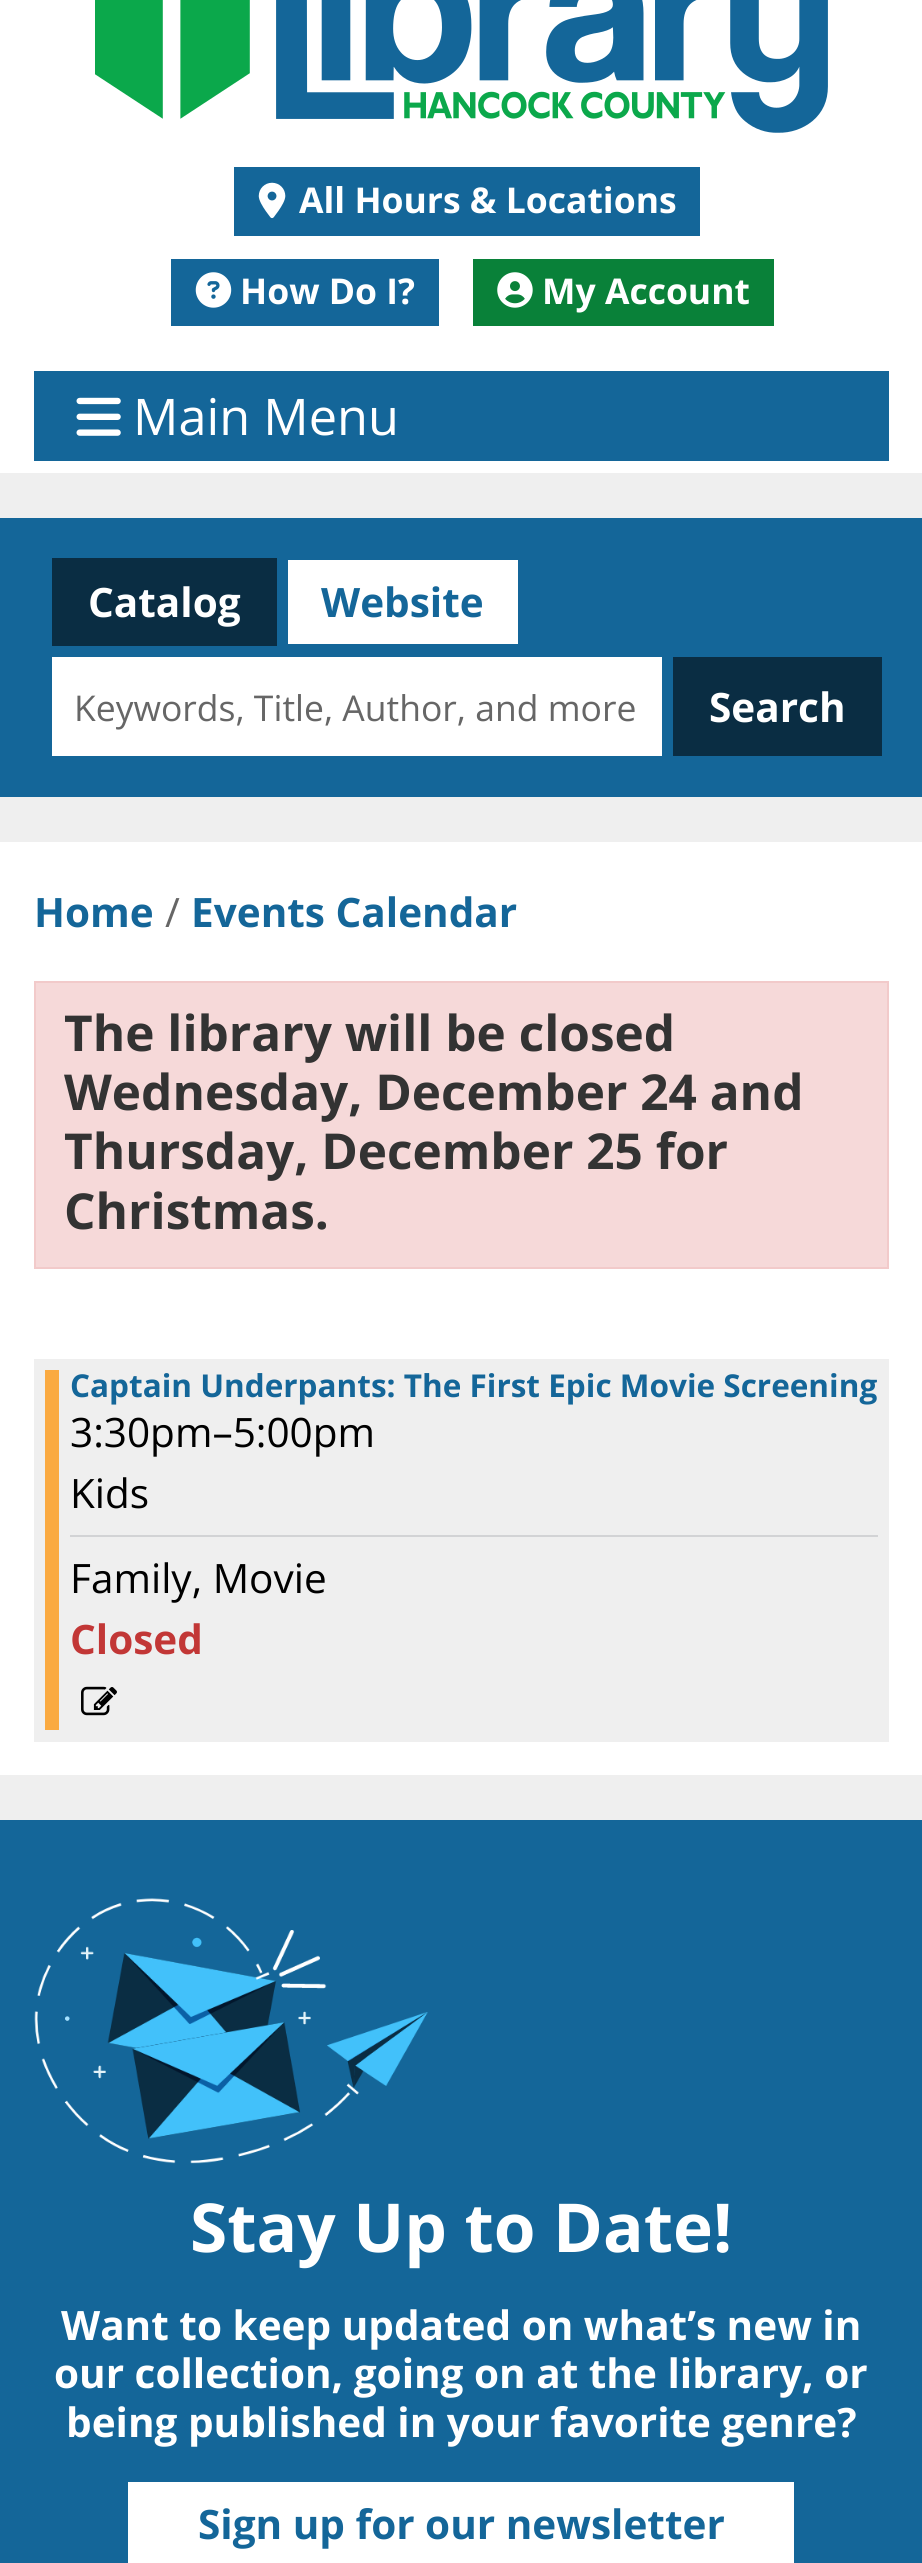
#include <cairo/cairo.h>
#include <math.h>
#include <stddef.h>

static cairo_t *cr;

static void use_color(int r, int g, int b) {
  cairo_set_source_rgb(cr, r / 255.0, g / 255.0, b / 255.0);
}

static void text(double x, double y, const char *s, const char *family, double size, int italic, int bold, int r, int g, int b) {
  cairo_select_font_face(cr, family, italic ? CAIRO_FONT_SLANT_ITALIC : CAIRO_FONT_SLANT_NORMAL,
    bold ? CAIRO_FONT_WEIGHT_BOLD : CAIRO_FONT_WEIGHT_NORMAL);
  cairo_set_font_size(cr, size);
  use_color(r, g, b);
  cairo_move_to(cr, x, y);
  cairo_show_text(cr, s);
}

static void box(double x, double y, double w, double h, int r, int g, int b) {
  use_color(r, g, b);
  cairo_rectangle(cr, x, y, w, h);
  cairo_fill(cr);
}

static void picture(const char *path, double x, double y, double w, double h) {
  cairo_surface_t *image = cairo_image_surface_create_from_png(path);
  cairo_save(cr);
  cairo_set_source_surface(cr, image, x, y);
  cairo_rectangle(cr, x, y, w, h);
  cairo_fill(cr);
  cairo_restore(cr);
  cairo_surface_destroy(image);
}

static void draw(void) {
  use_color(255, 255, 255);
  cairo_paint(cr);
  picture("img_01.png", 95, 0, 733, 133);
  box(234, 167, 466, 69, 20, 102, 153);
  picture("img_02.png", 258, 182, 28, 37);
  box(171, 259, 268, 67, 20, 102, 153);
  picture("img_03.png", 195, 272, 37, 36);
  box(473, 259, 301, 67, 9, 129, 57);
  picture("img_04.png", 497, 272, 36, 36);
  box(34, 371, 855, 90, 20, 102, 153);
  picture("img_05.png", 76, 397, 45, 39);
  box(0, 518, 922, 279, 20, 102, 153);
  box(0, 473, 922, 45, 239, 239, 239);
  box(0, 797, 922, 45, 239, 239, 239);
  box(52, 558, 225, 88, 10, 45, 67);
  box(288, 560, 230, 84, 255, 255, 255);
  box(52, 657, 610, 99, 255, 255, 255);
  box(673, 657, 209, 99, 10, 45, 67);
  use_color(246, 217, 217);
  cairo_rectangle(cr, 35, 982, 853, 286);
  cairo_fill_preserve(cr);
  use_color(242, 202, 202);
  cairo_stroke(cr);
  box(34, 1359, 855, 383, 239, 239, 239);
  box(45, 1370, 14, 360, 250, 170, 65);
  box(70, 1535, 808, 2, 210, 211, 213);
  picture("img_06.png", 81, 1686, 36, 30);
  box(0, 1820, 922, 743, 20, 102, 153);
  box(0, 1775, 922, 45, 239, 239, 239);
  picture("img_07.png", 34, 1898, 394, 266);
  box(128, 2482, 666, 81, 255, 255, 255);
  text(299, 213, "All Hours & Locations", "Open Sans", 35.5, 0, 1, 255, 255, 255);
  text(240, 304, "How Do I?", "Open Sans", 35.5, 0, 1, 255, 255, 255);
  text(542, 304, "My Account", "Open Sans", 35.5, 0, 1, 255, 255, 255);
  text(133, 435, "Main Menu", "Open Sans", 50.5, 0, 0, 255, 255, 255);
  text(88, 617, "Catalog", "Open Sans", 40.5, 0, 1, 255, 255, 255);
  text(321, 617, "Website", "Open Sans", 40.5, 0, 1, 20, 102, 153);
  text(74, 721, "Keywords, Title, Author, and more", "Open Sans", 35.5, 0, 0, 102, 102, 102);
  text(709, 722, "Search", "Open Sans", 40.5, 0, 1, 255, 255, 255);
  text(34, 927, "Home", "Open Sans", 40.5, 0, 1, 20, 102, 153);
  text(165, 927, "/", "Open Sans", 40.5, 0, 0, 102, 102, 102);
  text(191, 927, "Events Calendar", "Open Sans", 40.5, 0, 1, 20, 102, 153);
  text(64, 1051, "The library will be closed", "Open Sans", 49.5, 0, 1, 51, 51, 51);
  text(64, 1110, "Wednesday, December 24 and", "Open Sans", 49.5, 0, 1, 51, 51, 51);
  text(64, 1169, "Thursday, December 25 for", "Open Sans", 49.5, 0, 1, 51, 51, 51);
  text(64, 1229, "Christmas.", "Open Sans", 49.5, 0, 1, 51, 51, 51);
  text(70, 1397, "Captain Underpants: The First Epic Movie Screening", "Open Sans", 31.5, 0, 1, 20, 102, 153);
  text(70, 1447, "3:30pm–5:00pm", "Open Sans", 40.5, 0, 0, 0, 0, 0);
  text(70, 1508, "Kids", "Open Sans", 40.5, 0, 0, 0, 0, 0);
  text(70, 1593, "Family, Movie", "Open Sans", 40.5, 0, 0, 0, 0, 0);
  text(70, 1654, "Closed", "Open Sans", 40.5, 0, 1, 194, 55, 54);
  text(190, 2252, "Stay Up to Date!", "Open Sans", 67.5, 0, 1, 255, 255, 255);
  text(61, 2340, "Want to keep updated on what’s new in", "Open Sans", 40.5, 0, 1, 255, 255, 255);
  text(54, 2388, "our collection, going on at the library, or", "Open Sans", 40.5, 0, 1, 255, 255, 255);
  text(66, 2437, "being published in your favorite genre?", "Open Sans", 40.5, 0, 1, 255, 255, 255);
  text(198, 2539, "Sign up for our newsletter", "Open Sans", 40.5, 0, 1, 20, 102, 153);
}

int main(void) {
  cairo_surface_t *surface = cairo_image_surface_create(CAIRO_FORMAT_RGB24, 922, 2563);
  cr = cairo_create(surface);
  cairo_font_options_t *options = cairo_font_options_create();
  cairo_font_options_set_hint_metrics(options, CAIRO_HINT_METRICS_OFF);
  cairo_font_options_set_hint_style(options, CAIRO_HINT_STYLE_NONE);
  cairo_set_font_options(cr, options);
  cairo_set_miter_limit(cr, 4);
  draw();
  cairo_surface_write_to_png(surface, "out.png");
  cairo_font_options_destroy(options);
  cairo_destroy(cr);
  cairo_surface_destroy(surface);
  return 0;
}
